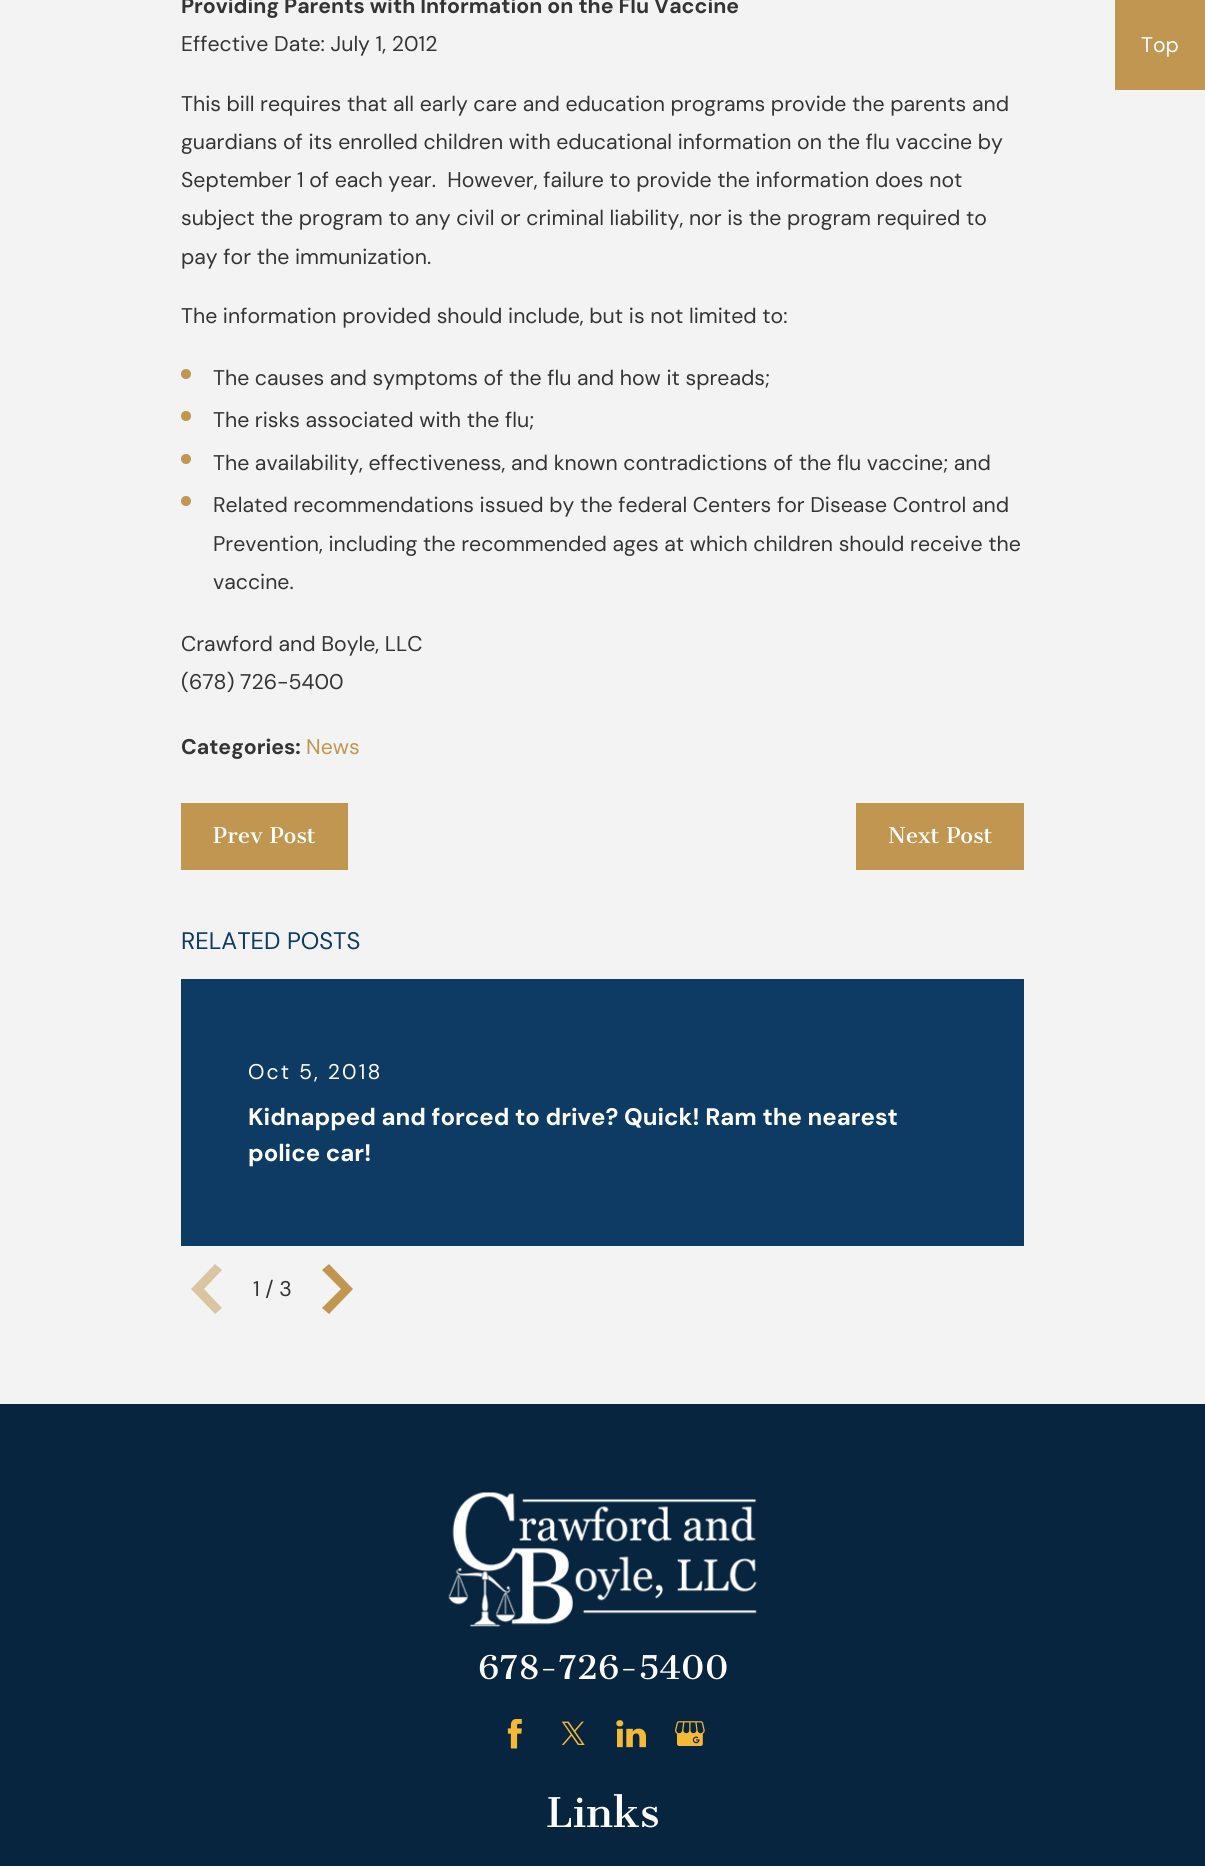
#include <cairo/cairo.h>
#include <math.h>
#include <stddef.h>

static cairo_t *cr;

static void use_color(int r, int g, int b) {
  cairo_set_source_rgb(cr, r / 255.0, g / 255.0, b / 255.0);
}

static void text(double x, double y, const char *s, const char *family, double size, int italic, int bold, int r, int g, int b) {
  cairo_select_font_face(cr, family, italic ? CAIRO_FONT_SLANT_ITALIC : CAIRO_FONT_SLANT_NORMAL,
    bold ? CAIRO_FONT_WEIGHT_BOLD : CAIRO_FONT_WEIGHT_NORMAL);
  cairo_set_font_size(cr, size);
  use_color(r, g, b);
  cairo_move_to(cr, x, y);
  cairo_show_text(cr, s);
}

static void spaced_text(double x, double y, const char *s, double letter, double word) {
  cairo_move_to(cr, x, y);
  while (*s) {
    char ch[5] = {0};
    int n = 0;
    do ch[n++] = *s++; while ((*s & 0xC0) == 0x80);
    cairo_show_text(cr, ch);
    cairo_rel_move_to(cr, letter + word * (*ch == ' '), 0);
  }
}

static void box(double x, double y, double w, double h, int r, int g, int b) {
  use_color(r, g, b);
  cairo_rectangle(cr, x, y, w, h);
  cairo_fill(cr);
}

static void picture(const char *path, double x, double y, double w, double h) {
  cairo_surface_t *image = cairo_image_surface_create_from_png(path);
  cairo_save(cr);
  cairo_set_source_surface(cr, image, x, y);
  cairo_rectangle(cr, x, y, w, h);
  cairo_fill(cr);
  cairo_restore(cr);
  cairo_surface_destroy(image);
}

static void draw(void) {
  use_color(243, 243, 243);
  cairo_paint(cr);
  use_color(193, 150, 80);
  cairo_arc(cr, 186, 374, 5, 0, 2 * M_PI);
  cairo_fill(cr);
  cairo_arc(cr, 186, 416, 5, 0, 2 * M_PI);
  cairo_fill(cr);
  cairo_arc(cr, 186, 459, 5, 0, 2 * M_PI);
  cairo_fill(cr);
  cairo_arc(cr, 186, 501, 5, 0, 2 * M_PI);
  cairo_fill(cr);
  box(181, 803, 167, 67, 193, 150, 80);
  box(856, 803, 168, 67, 193, 150, 80);
  box(181, 979, 843, 267, 14, 59, 99);
  use_color(218, 197, 162);
  cairo_new_path(cr);
  cairo_move_to(cr, 204, 1289);
  cairo_line_to(cr, 222, 1270);
  cairo_line_to(cr, 215, 1264);
  cairo_line_to(cr, 191, 1289);
  cairo_line_to(cr, 215, 1314);
  cairo_line_to(cr, 222, 1308);
  cairo_close_path(cr);
  cairo_fill(cr);
  use_color(193, 150, 80);
  cairo_new_path(cr);
  cairo_move_to(cr, 341, 1289);
  cairo_line_to(cr, 322, 1308);
  cairo_line_to(cr, 329, 1314);
  cairo_line_to(cr, 353, 1289);
  cairo_line_to(cr, 329, 1264);
  cairo_line_to(cr, 322, 1270);
  cairo_close_path(cr);
  cairo_fill(cr);
  box(1115, 0, 90, 90, 193, 150, 80);
  box(0, 1404, 1205, 462, 8, 37, 63);
  picture("img_01.png", 448, 1492, 309, 135);
  picture("img_02.png", 507, 1719, 15, 30);
  picture("img_03.png", 561, 1721, 24, 24);
  picture("img_04.png", 616, 1720, 30, 28);
  picture("img_05.png", 675, 1721, 30, 25);
  text(181, 13, "Providing Parents with Information on the Flu Vaccine", "DM Sans", 21.25, 0, 1, 52, 52, 52);
  text(181, 51, "Effective Date: July 1, 2012", "DM Sans", 21.25, 0, 0, 52, 52, 52);
  text(181, 111, "This bill requires that all early care and education programs provide the parents and", "DM Sans", 21.25, 0, 0, 52, 52, 52);
  text(181, 149, "guardians of its enrolled children with educational information on the flu vaccine by", "DM Sans", 21.25, 0, 0, 52, 52, 52);
  text(181, 187, "September 1 of each year.  However, failure to provide the information does not", "DM Sans", 21.25, 0, 0, 52, 52, 52);
  text(181, 225, "subject the program to any civil or criminal liability, nor is the program required to", "DM Sans", 21.25, 0, 0, 52, 52, 52);
  text(181, 264, "pay for the immunization.", "DM Sans", 21.25, 0, 0, 52, 52, 52);
  text(181, 323, "The information provided should include, but is not limited to:", "DM Sans", 21.25, 0, 0, 52, 52, 52);
  text(213, 385, "The causes and symptoms of the flu and how it spreads;", "DM Sans", 21.25, 0, 0, 52, 52, 52);
  text(213, 427, "The risks associated with the flu;", "DM Sans", 21.25, 0, 0, 52, 52, 52);
  text(213, 470, "The availability, effectiveness, and known contradictions of the flu vaccine; and", "DM Sans", 21.25, 0, 0, 52, 52, 52);
  text(213, 512, "Related recommendations issued by the federal Centers for Disease Control and", "DM Sans", 21.25, 0, 0, 52, 52, 52);
  text(213, 551, "Prevention, including the recommended ages at which children should receive the", "DM Sans", 21.25, 0, 0, 52, 52, 52);
  text(213, 589, "vaccine.", "DM Sans", 21.25, 0, 0, 52, 52, 52);
  text(181, 651, "Crawford and Boyle, LLC", "DM Sans", 21.25, 0, 0, 52, 52, 52);
  text(181, 689, "(678) 726-5400", "DM Sans", 21.25, 0, 0, 52, 52, 52);
  text(181, 754, "Categories:", "DM Sans", 21.25, 0, 1, 52, 52, 52);
  text(306, 754, "News", "DM Sans", 21.25, 0, 0, 193, 150, 80);
  text(213, 843, "Prev Post", "Cantata One", 21.25, 0, 0, 255, 255, 255);
  text(888, 843, "Next Post", "Cantata One", 21.25, 0, 0, 255, 255, 255);
  text(181, 949, "RELATED POSTS", "DM Sans", 23.9, 0, 0, 14, 59, 99);
  cairo_set_font_size(cr, 21.25);
  use_color(255, 255, 255);
  spaced_text(248, 1079, "Oct 5, 2018", 2.1, 0);
  text(248, 1125, "Kidnapped and forced to drive? Quick! Ram the nearest", "DM Sans", 23.9, 0, 1, 255, 255, 255);
  text(248, 1161, "police car!", "DM Sans", 23.9, 0, 1, 255, 255, 255);
  text(253, 1296, "1 / 3", "DM Sans", 21.25, 0, 0, 52, 52, 52);
  text(1141, 52, "Top", "DM Sans", 21.25, 0, 0, 255, 255, 255);
  text(478, 1679, "678-726-5400", "Cantata One", 32, 0, 0, 255, 255, 255);
  text(546, 1827, "Links", "Cantata One", 40, 0, 0, 255, 255, 255);
}

int main(void) {
  cairo_surface_t *surface = cairo_image_surface_create(CAIRO_FORMAT_RGB24, 1205, 1866);
  cr = cairo_create(surface);
  cairo_font_options_t *options = cairo_font_options_create();
  cairo_font_options_set_hint_metrics(options, CAIRO_HINT_METRICS_OFF);
  cairo_font_options_set_hint_style(options, CAIRO_HINT_STYLE_NONE);
  cairo_set_font_options(cr, options);
  cairo_set_miter_limit(cr, 4);
  draw();
  cairo_surface_write_to_png(surface, "out.png");
  cairo_font_options_destroy(options);
  cairo_destroy(cr);
  cairo_surface_destroy(surface);
  return 0;
}
